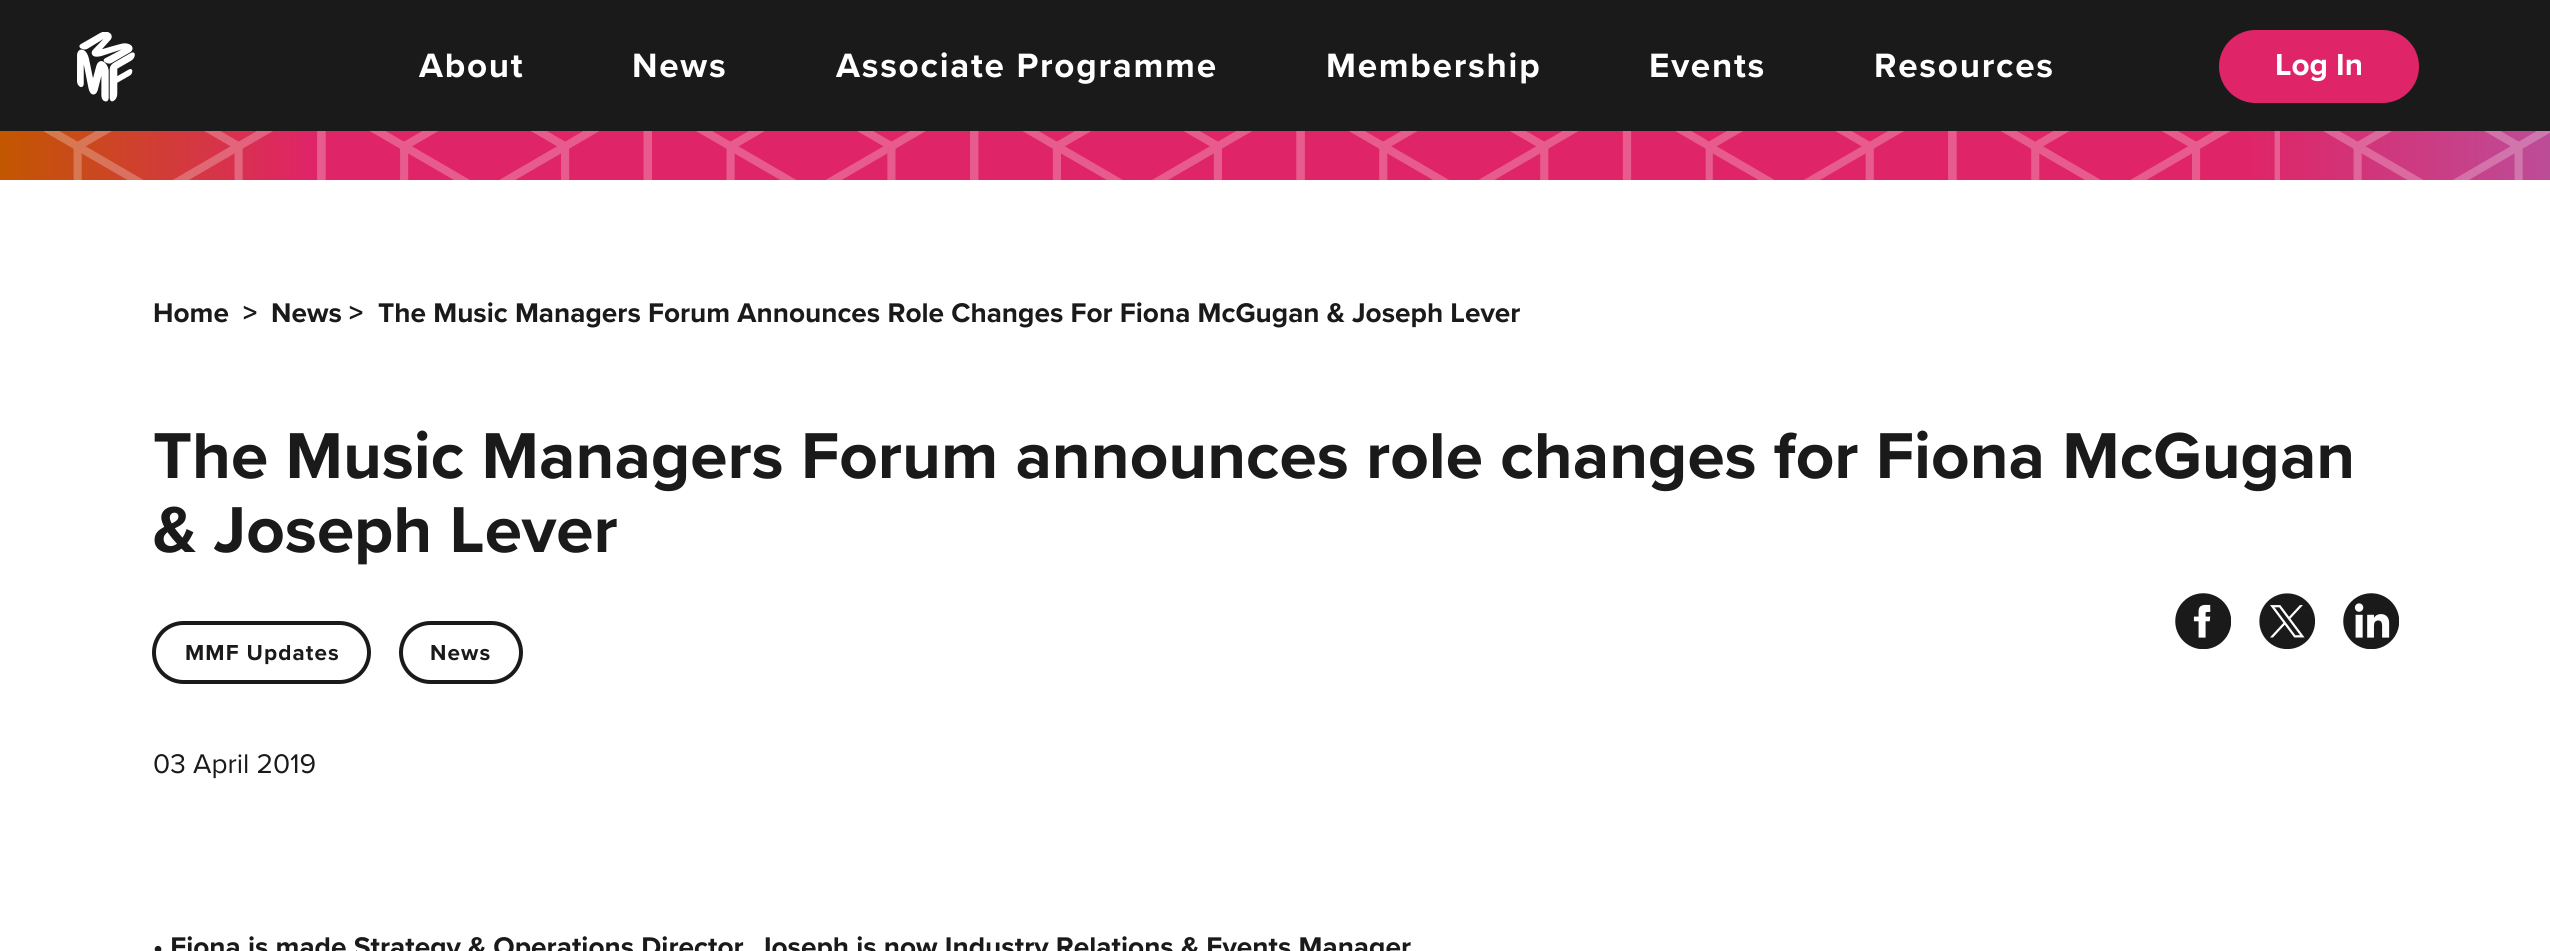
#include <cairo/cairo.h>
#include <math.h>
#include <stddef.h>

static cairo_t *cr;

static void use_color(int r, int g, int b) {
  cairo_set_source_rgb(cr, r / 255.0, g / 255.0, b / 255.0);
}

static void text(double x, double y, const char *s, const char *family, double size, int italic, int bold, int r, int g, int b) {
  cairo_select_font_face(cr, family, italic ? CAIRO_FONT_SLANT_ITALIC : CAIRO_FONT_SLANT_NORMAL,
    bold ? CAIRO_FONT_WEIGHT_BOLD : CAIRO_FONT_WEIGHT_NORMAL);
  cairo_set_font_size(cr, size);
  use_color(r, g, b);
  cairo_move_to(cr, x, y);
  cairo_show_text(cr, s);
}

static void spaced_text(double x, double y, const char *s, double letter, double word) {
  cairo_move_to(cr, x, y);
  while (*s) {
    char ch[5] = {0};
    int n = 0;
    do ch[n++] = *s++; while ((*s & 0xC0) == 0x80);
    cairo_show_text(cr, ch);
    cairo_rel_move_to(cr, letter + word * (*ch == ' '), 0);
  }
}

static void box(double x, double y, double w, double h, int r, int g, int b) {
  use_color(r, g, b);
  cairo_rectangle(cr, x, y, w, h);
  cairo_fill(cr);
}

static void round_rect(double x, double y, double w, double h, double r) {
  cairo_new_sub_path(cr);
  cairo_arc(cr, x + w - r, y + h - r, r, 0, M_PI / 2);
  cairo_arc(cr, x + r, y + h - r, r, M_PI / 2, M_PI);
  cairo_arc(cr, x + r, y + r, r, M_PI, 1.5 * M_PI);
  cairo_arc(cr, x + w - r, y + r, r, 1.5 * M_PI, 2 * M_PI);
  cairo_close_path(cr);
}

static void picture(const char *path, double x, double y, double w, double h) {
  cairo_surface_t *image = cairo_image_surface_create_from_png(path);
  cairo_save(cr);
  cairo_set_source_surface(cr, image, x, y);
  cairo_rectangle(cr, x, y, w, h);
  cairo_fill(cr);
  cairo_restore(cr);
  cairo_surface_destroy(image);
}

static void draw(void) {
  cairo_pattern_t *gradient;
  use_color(255, 255, 255);
  cairo_paint(cr);
  box(0, 0, 2550, 131, 26, 26, 26);
  picture("img_01.png", 77, 32, 58, 70);
  use_color(223, 37, 103);
  round_rect(2219, 30, 200, 73, 36.5);
  cairo_fill(cr);
  gradient = cairo_pattern_create_linear(0, -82, 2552, -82);
  cairo_pattern_add_color_stop_rgba(gradient, 0, 0.761, 0.341, 0, 1);
  cairo_pattern_add_color_stop_rgba(gradient, 0.12, 0.875, 0.145, 0.404, 1);
  cairo_pattern_add_color_stop_rgba(gradient, 0.88, 0.875, 0.145, 0.404, 1);
  cairo_pattern_add_color_stop_rgba(gradient, 1, 0.741, 0.298, 0.592, 1);
  cairo_set_source(cr, gradient);
  cairo_pattern_destroy(gradient);
  cairo_rectangle(cr, 0, 131, 2550, 49);
  cairo_fill(cr);
  picture("img_02.png", 43, 131, 2507, 49);
  picture("img_03.png", 2175, 593, 56, 56);
  picture("img_04.png", 2259, 593, 56, 56);
  picture("img_05.png", 2343, 593, 56, 56);
  round_rect(154, 623, 215, 59, 29.5);
  use_color(26, 26, 26);
  cairo_set_line_width(cr, 4);
  cairo_stroke(cr);
  round_rect(401, 623, 120, 59, 29.5);
  cairo_stroke(cr);
  cairo_select_font_face(cr, "Proxima Nova", CAIRO_FONT_SLANT_NORMAL, CAIRO_FONT_WEIGHT_BOLD);
  cairo_set_font_size(cr, 35);
  use_color(255, 255, 255);
  spaced_text(419, 77, "About", 1.75, 0);
  spaced_text(632, 77, "News", 1.75, 0);
  spaced_text(836, 77, "Associate Programme", 1.75, 0);
  spaced_text(1326, 77, "Membership", 1.75, 0);
  spaced_text(1649, 77, "Events", 1.75, 0);
  spaced_text(1874, 77, "Resources", 1.75, 0);
  text(2275, 75, "Log In", "Proxima Nova", 31.5, 0, 1, 255, 255, 255);
  text(153, 322, "Home", "Proxima Nova", 28, 0, 1, 26, 26, 26);
  text(243, 322, ">", "Proxima Nova", 28, 0, 1, 26, 26, 26);
  text(271, 322, "News >", "Proxima Nova", 28, 0, 1, 26, 26, 26);
  text(378, 322, "The Music Managers Forum Announces Role Changes For Fiona McGugan & Joseph Lever", "Proxima Nova", 28, 0, 1, 26, 26, 26);
  text(153, 478, "The Music Managers Forum announces role changes for Fiona McGugan", "Proxima Nova", 67.2, 0, 1, 26, 26, 26);
  text(153, 552, "& Joseph Lever", "Proxima Nova", 67.2, 0, 1, 26, 26, 26);
  cairo_set_font_size(cr, 22.5);
  spaced_text(185, 660, "MMF Updates", 1.1, 0);
  spaced_text(430, 660, "News", 1.1, 0);
  text(153, 773, "03 April 2019", "Proxima Nova", 28, 0, 0, 26, 26, 26);
  text(153, 956, "• Fiona is made Strategy & Operations Director, Joseph is now Industry Relations & Events Manager", "Proxima Nova", 28, 0, 1, 26, 26, 26);
}

int main(void) {
  cairo_surface_t *surface = cairo_image_surface_create(CAIRO_FORMAT_RGB24, 2550, 951);
  cr = cairo_create(surface);
  cairo_font_options_t *options = cairo_font_options_create();
  cairo_font_options_set_hint_metrics(options, CAIRO_HINT_METRICS_OFF);
  cairo_font_options_set_hint_style(options, CAIRO_HINT_STYLE_NONE);
  cairo_set_font_options(cr, options);
  cairo_set_miter_limit(cr, 4);
  draw();
  cairo_surface_write_to_png(surface, "out.png");
  cairo_font_options_destroy(options);
  cairo_destroy(cr);
  cairo_surface_destroy(surface);
  return 0;
}
